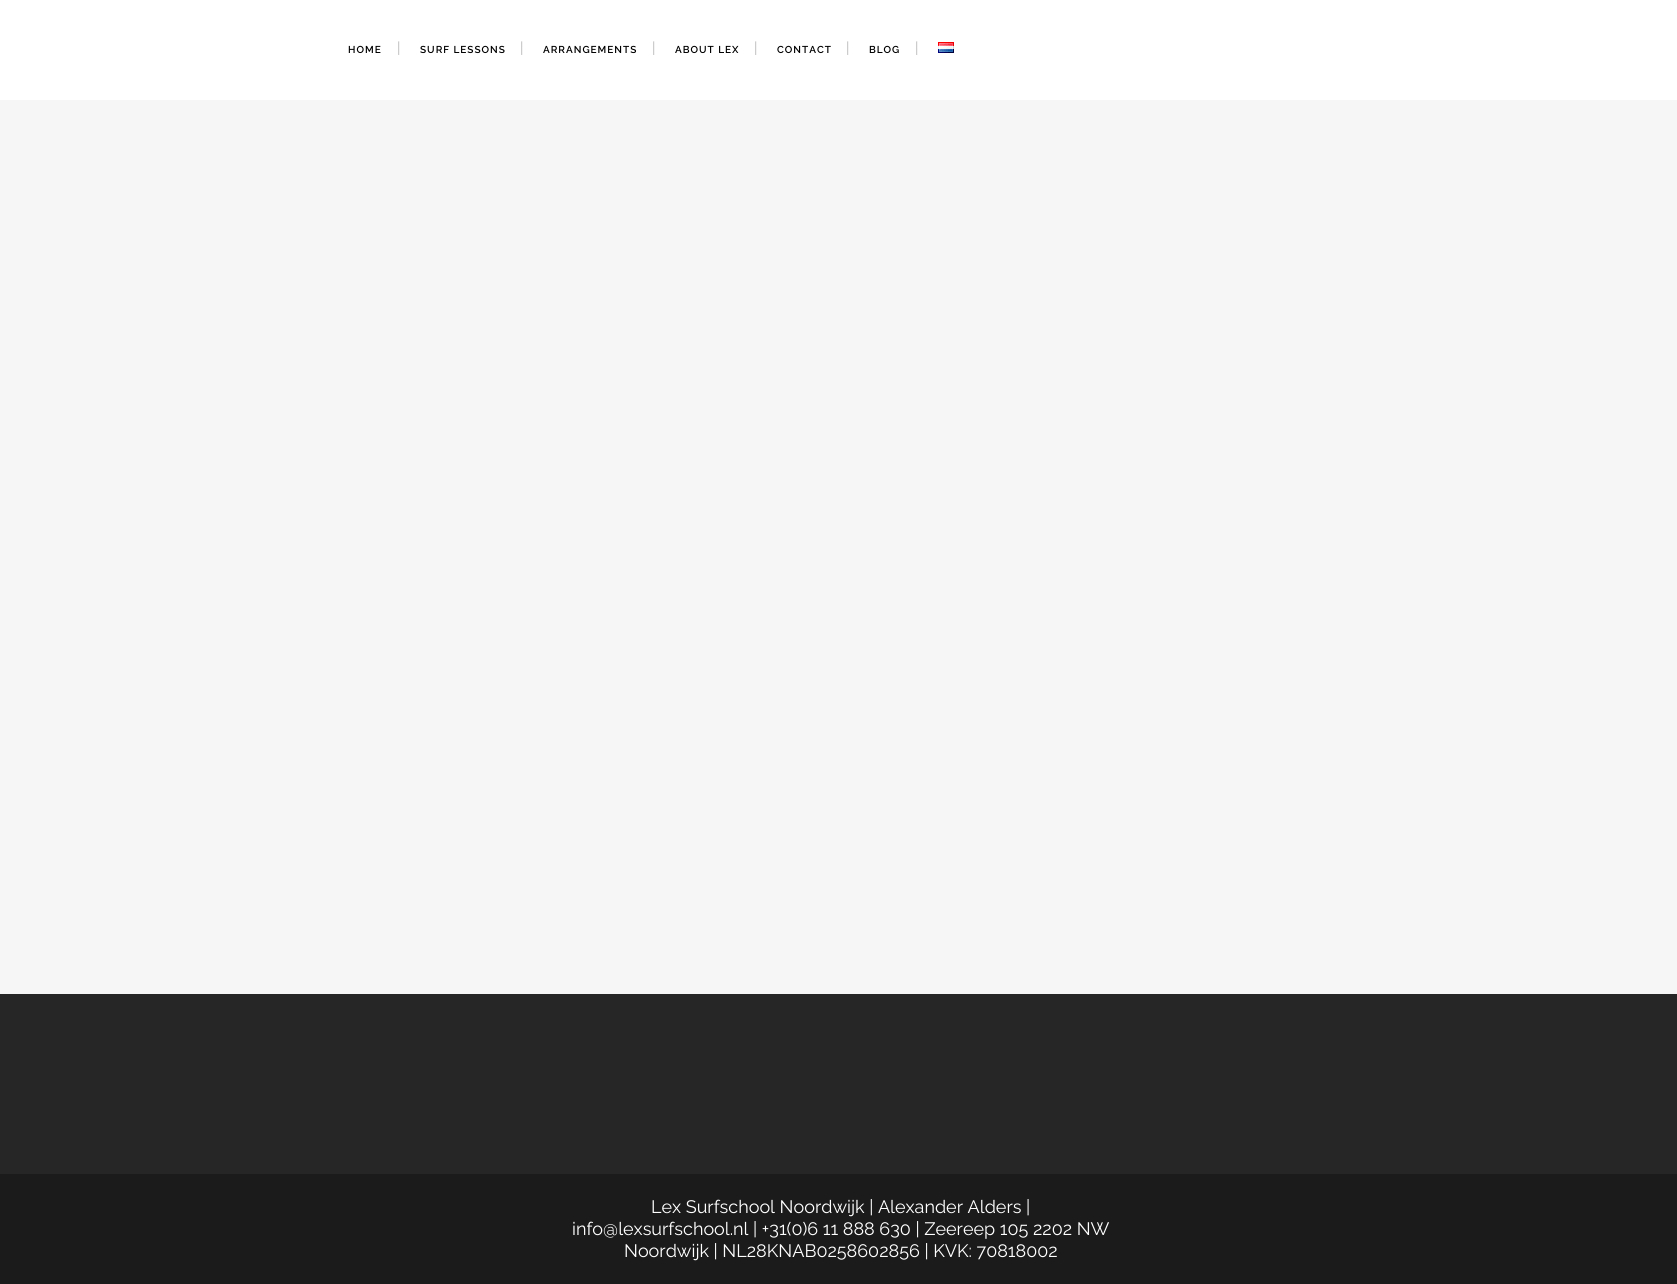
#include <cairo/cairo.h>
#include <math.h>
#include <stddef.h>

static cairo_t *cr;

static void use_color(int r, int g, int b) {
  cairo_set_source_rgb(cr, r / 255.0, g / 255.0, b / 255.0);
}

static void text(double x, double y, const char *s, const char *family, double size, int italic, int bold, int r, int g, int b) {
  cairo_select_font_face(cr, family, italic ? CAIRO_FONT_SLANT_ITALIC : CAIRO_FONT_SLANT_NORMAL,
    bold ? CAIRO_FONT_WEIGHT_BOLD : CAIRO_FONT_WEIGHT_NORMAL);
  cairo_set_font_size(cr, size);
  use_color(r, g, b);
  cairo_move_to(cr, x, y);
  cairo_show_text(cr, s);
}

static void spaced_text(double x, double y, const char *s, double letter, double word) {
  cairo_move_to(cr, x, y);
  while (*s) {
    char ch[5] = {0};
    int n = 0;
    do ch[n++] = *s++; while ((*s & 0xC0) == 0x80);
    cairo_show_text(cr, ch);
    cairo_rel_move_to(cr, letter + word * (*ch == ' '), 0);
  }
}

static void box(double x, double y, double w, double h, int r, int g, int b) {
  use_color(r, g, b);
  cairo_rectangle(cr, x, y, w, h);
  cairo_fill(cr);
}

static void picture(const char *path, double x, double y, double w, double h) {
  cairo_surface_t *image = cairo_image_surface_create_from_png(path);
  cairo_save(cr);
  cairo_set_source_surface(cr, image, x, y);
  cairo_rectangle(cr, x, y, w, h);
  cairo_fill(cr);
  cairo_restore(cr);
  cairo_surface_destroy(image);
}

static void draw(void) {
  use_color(246, 246, 246);
  cairo_paint(cr);
  box(0, 0, 1677, 100, 255, 255, 255);
  picture("img_01.png", 938, 42, 16, 11);
  box(0, 994, 1677, 180, 38, 38, 38);
  box(0, 1174, 1677, 110, 27, 27, 27);
  cairo_select_font_face(cr, "Raleway SemiBold", CAIRO_FONT_SLANT_NORMAL, CAIRO_FONT_WEIGHT_NORMAL);
  cairo_set_font_size(cr, 10);
  use_color(0, 0, 0);
  spaced_text(348, 53, "HOME", 1, 0);
  text(397, 53, "|", "Raleway", 15, 0, 0, 183, 183, 183);
  cairo_select_font_face(cr, "Raleway SemiBold", CAIRO_FONT_SLANT_NORMAL, CAIRO_FONT_WEIGHT_NORMAL);
  cairo_set_font_size(cr, 10);
  use_color(0, 0, 0);
  spaced_text(420, 53, "SURF LESSONS", 1, 0);
  text(520, 53, "|", "Raleway", 15, 0, 0, 183, 183, 183);
  cairo_select_font_face(cr, "Raleway SemiBold", CAIRO_FONT_SLANT_NORMAL, CAIRO_FONT_WEIGHT_NORMAL);
  cairo_set_font_size(cr, 10);
  use_color(0, 0, 0);
  spaced_text(543, 53, "ARRANGEMENTS", 1, 0);
  text(652, 53, "|", "Raleway", 15, 0, 0, 183, 183, 183);
  cairo_select_font_face(cr, "Raleway SemiBold", CAIRO_FONT_SLANT_NORMAL, CAIRO_FONT_WEIGHT_NORMAL);
  cairo_set_font_size(cr, 10);
  use_color(0, 0, 0);
  spaced_text(675, 53, "ABOUT LEX", 1, 0);
  text(754, 53, "|", "Raleway", 15, 0, 0, 183, 183, 183);
  cairo_select_font_face(cr, "Raleway SemiBold", CAIRO_FONT_SLANT_NORMAL, CAIRO_FONT_WEIGHT_NORMAL);
  cairo_set_font_size(cr, 10);
  use_color(0, 0, 0);
  spaced_text(777, 53, "CONTACT", 1, 0);
  text(846, 53, "|", "Raleway", 15, 0, 0, 183, 183, 183);
  cairo_select_font_face(cr, "Raleway SemiBold", CAIRO_FONT_SLANT_NORMAL, CAIRO_FONT_WEIGHT_NORMAL);
  cairo_set_font_size(cr, 10);
  use_color(0, 0, 0);
  spaced_text(869, 53, "BLOG", 1, 0);
  text(915, 53, "|", "Raleway", 15, 0, 0, 183, 183, 183);
  text(651, 1213, "Lex Surfschool Noordwijk | Alexander Alders |", "Raleway", 18, 0, 0, 255, 255, 255);
  text(572, 1235, "info@lexsurfschool.nl | +31(0)6 11 888 630 | Zeereep 105 2202 NW", "Raleway", 18, 0, 0, 255, 255, 255);
  text(624, 1257, "Noordwijk | NL28KNAB0258602856 | KVK: 70818002", "Raleway", 18, 0, 0, 255, 255, 255);
}

int main(void) {
  cairo_surface_t *surface = cairo_image_surface_create(CAIRO_FORMAT_RGB24, 1677, 1284);
  cr = cairo_create(surface);
  cairo_font_options_t *options = cairo_font_options_create();
  cairo_font_options_set_hint_metrics(options, CAIRO_HINT_METRICS_OFF);
  cairo_font_options_set_hint_style(options, CAIRO_HINT_STYLE_NONE);
  cairo_set_font_options(cr, options);
  cairo_set_miter_limit(cr, 4);
  draw();
  cairo_surface_write_to_png(surface, "out.png");
  cairo_font_options_destroy(options);
  cairo_destroy(cr);
  cairo_surface_destroy(surface);
  return 0;
}
